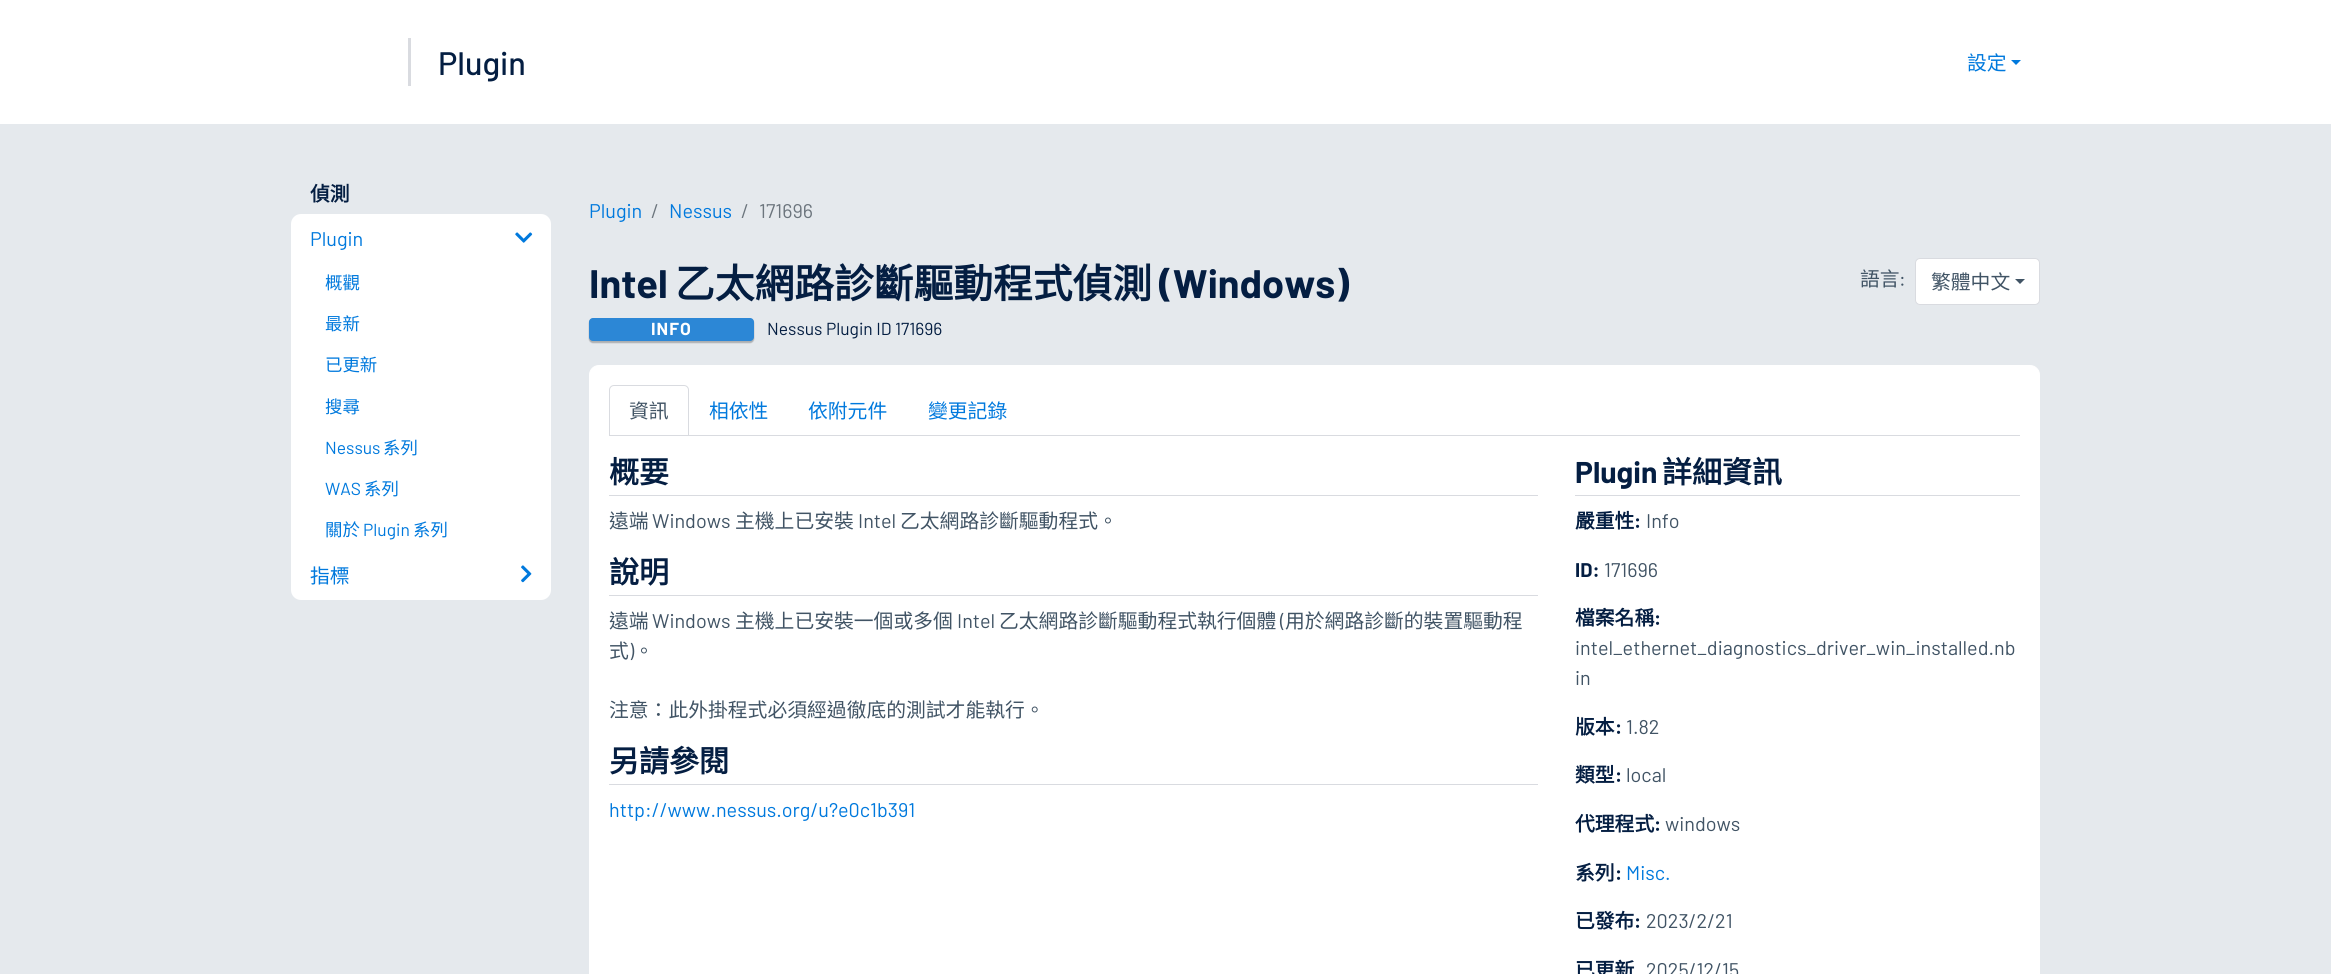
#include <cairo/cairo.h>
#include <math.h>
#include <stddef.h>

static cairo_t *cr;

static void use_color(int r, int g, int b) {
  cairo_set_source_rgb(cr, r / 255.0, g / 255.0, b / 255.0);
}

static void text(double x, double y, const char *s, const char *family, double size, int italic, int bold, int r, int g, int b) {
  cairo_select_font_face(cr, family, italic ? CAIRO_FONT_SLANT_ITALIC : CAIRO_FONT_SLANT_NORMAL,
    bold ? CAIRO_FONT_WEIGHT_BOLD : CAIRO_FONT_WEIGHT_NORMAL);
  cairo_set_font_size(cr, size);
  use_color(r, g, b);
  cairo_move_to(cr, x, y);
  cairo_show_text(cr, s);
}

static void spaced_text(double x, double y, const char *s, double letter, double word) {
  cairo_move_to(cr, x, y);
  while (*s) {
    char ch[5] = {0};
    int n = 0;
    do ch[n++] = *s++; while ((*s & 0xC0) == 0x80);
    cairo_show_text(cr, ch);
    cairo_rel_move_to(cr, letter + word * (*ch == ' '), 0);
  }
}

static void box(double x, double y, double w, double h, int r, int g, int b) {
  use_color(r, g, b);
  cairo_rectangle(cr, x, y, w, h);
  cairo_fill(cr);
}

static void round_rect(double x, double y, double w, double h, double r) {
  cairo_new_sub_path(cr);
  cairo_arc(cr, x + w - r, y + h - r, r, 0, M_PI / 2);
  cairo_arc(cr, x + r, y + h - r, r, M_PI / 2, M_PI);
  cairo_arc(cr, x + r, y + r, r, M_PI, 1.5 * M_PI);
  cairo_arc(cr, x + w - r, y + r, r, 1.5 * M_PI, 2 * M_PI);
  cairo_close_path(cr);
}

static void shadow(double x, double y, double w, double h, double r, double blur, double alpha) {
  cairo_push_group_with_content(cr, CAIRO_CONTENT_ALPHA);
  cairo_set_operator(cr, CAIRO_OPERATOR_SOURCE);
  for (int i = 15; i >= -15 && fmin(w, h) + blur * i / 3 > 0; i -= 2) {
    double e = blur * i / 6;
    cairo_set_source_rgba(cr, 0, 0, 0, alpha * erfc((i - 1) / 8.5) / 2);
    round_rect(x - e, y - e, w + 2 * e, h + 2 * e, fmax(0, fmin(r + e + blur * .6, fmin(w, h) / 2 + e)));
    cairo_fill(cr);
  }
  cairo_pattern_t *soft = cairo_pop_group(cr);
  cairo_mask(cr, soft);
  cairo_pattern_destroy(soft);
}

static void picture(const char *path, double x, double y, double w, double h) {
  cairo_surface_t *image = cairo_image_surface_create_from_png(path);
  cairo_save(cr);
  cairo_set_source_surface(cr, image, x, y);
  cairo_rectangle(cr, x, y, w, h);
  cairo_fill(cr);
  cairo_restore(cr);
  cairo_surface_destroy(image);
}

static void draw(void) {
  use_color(255, 255, 255);
  cairo_paint(cr);
  box(408, 38, 3, 48, 217, 219, 224);
  use_color(0, 121, 221);
  cairo_new_path(cr);
  cairo_move_to(cr, 2011, 60);
  cairo_line_to(cr, 2021, 60);
  cairo_line_to(cr, 2016, 65);
  cairo_close_path(cr);
  cairo_fill(cr);
  box(0, 124, 2331, 850, 229, 233, 237);
  use_color(255, 255, 255);
  round_rect(291, 214, 260, 386, 10);
  cairo_fill(cr);
  picture("img_01.png", 515, 232, 18, 11);
  picture("img_02.png", 521, 565, 11, 18);
  use_color(0, 0, 0);
  shadow(589, 319, 165, 24, 4, 0.5, 0.25);
  use_color(44, 135, 214);
  round_rect(589, 318, 165, 23, 4);
  cairo_fill(cr);
  use_color(255, 255, 255);
  round_rect(1915.5, 258.5, 124, 46, 4.5);
  cairo_fill_preserve(cr);
  use_color(217, 219, 224);
  cairo_set_line_width(cr, 1);
  cairo_stroke(cr);
  use_color(65, 84, 101);
  cairo_new_path(cr);
  cairo_move_to(cr, 2015, 279);
  cairo_line_to(cr, 2025, 279);
  cairo_line_to(cr, 2020, 284);
  cairo_close_path(cr);
  cairo_fill(cr);
  use_color(255, 255, 255);
  round_rect(589.5, 365.5, 1450, 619, 9.5);
  cairo_fill_preserve(cr);
  cairo_stroke(cr);
  box(689, 435, 1331, 1, 217, 219, 224);
  cairo_new_path(cr);
  cairo_move_to(cr, 614, 385.5);
  cairo_line_to(cr, 684, 385.5);
  cairo_curve_to(cr, 686.5, 385.5, 688.5, 387.5, 688.5, 390);
  cairo_line_to(cr, 688.5, 435.5);
  cairo_line_to(cr, 609.5, 435.5);
  cairo_line_to(cr, 609.5, 390);
  cairo_curve_to(cr, 609.5, 387.5, 611.5, 385.5, 614, 385.5);
  cairo_close_path(cr);
  cairo_stroke(cr);
  box(609, 495, 929, 1, 217, 219, 224);
  box(609, 595, 929, 1, 217, 219, 224);
  box(609, 784, 929, 1, 217, 219, 224);
  box(1575, 495, 445, 1, 217, 219, 224);
  text(438, 75, "Plugin", "Barlow Medium", 32.5, 0, 0, 4, 30, 66);
  text(1967, 70, "設定", "Noto Sans CJK TC", 19.8, 0, 0, 0, 121, 221);
  text(310, 201, "偵測", "Noto Sans CJK TC", 19.8, 0, 1, 4, 30, 66);
  text(310, 246, "Plugin", "Barlow", 19.8, 0, 0, 0, 121, 221);
  text(325, 289, "概觀", "Noto Sans CJK TC", 17.4, 0, 0, 0, 121, 221);
  text(325, 330, "最新", "Noto Sans CJK TC", 17.4, 0, 0, 0, 121, 221);
  text(325, 371, "已更新", "Noto Sans CJK TC", 17.4, 0, 0, 0, 121, 221);
  text(325, 413, "搜尋", "Noto Sans CJK TC", 17.4, 0, 0, 0, 121, 221);
  text(325, 454, "Nessus", "Barlow", 17.4, 0, 0, 0, 121, 221);
  text(383, 454, "系列", "Noto Sans CJK TC", 17.4, 0, 0, 0, 121, 221);
  text(325, 495, "WAS", "Barlow", 17.4, 0, 0, 0, 121, 221);
  text(364, 495, "系列", "Noto Sans CJK TC", 17.4, 0, 0, 0, 121, 221);
  text(325, 536, "關於", "Noto Sans CJK TC", 17.4, 0, 0, 0, 121, 221);
  text(363, 536, "Plugin", "Barlow", 17.4, 0, 0, 0, 121, 221);
  text(413, 536, "系列", "Noto Sans CJK TC", 17.4, 0, 0, 0, 121, 221);
  text(310, 583, "指標", "Noto Sans CJK TC", 19.8, 0, 0, 0, 121, 221);
  text(589, 218, "Plugin", "Barlow", 19.8, 0, 0, 0, 121, 221);
  text(651, 218, "/", "Barlow", 19.8, 0, 0, 108, 117, 125);
  text(669, 218, "Nessus", "Barlow", 19.8, 0, 0, 0, 121, 221);
  text(741, 218, "/", "Barlow", 19.8, 0, 0, 108, 117, 125);
  text(759, 218, "171696", "Barlow", 19.8, 0, 0, 108, 117, 125);
  text(589, 298, "Intel", "Barlow", 39.75, 0, 1, 4, 30, 66);
  text(675, 298, "乙太網路診斷驅動程式偵測", "Noto Sans CJK TC", 39.75, 0, 1, 4, 30, 66);
  text(1159, 298, "(Windows)", "Barlow", 39.75, 0, 1, 4, 30, 66);
  cairo_set_font_size(cr, 17.4);
  use_color(255, 255, 255);
  spaced_text(651, 335, "INFO", 1, 0);
  text(767, 335, "Nessus Plugin ID 171696", "Barlow", 17.4, 0, 0, 4, 30, 66);
  text(1860, 286, "語言", "Noto Sans CJK TC", 19.8, 0, 0, 65, 84, 101);
  text(1899, 286, ":", "Barlow", 19.8, 0, 0, 65, 84, 101);
  text(1931, 289, "繁體中文", "Noto Sans CJK TC", 19.8, 0, 0, 65, 84, 101);
  text(629, 418, "資訊", "Noto Sans CJK TC", 19.8, 0, 0, 65, 84, 101);
  text(709, 418, "相依性", "Noto Sans CJK TC", 19.8, 0, 0, 0, 121, 221);
  text(808, 418, "依附元件", "Noto Sans CJK TC", 19.8, 0, 0, 0, 121, 221);
  text(928, 418, "變更記錄", "Noto Sans CJK TC", 19.8, 0, 0, 0, 121, 221);
  text(609, 483, "概要", "Noto Sans CJK TC", 30, 0, 1, 4, 30, 66);
  text(609, 528, "遠端", "Noto Sans CJK TC", 19.8, 0, 0, 65, 84, 101);
  text(652, 528, "Windows", "Barlow", 19.8, 0, 0, 65, 84, 101);
  text(735, 528, "主機上已安裝", "Noto Sans CJK TC", 19.8, 0, 0, 65, 84, 101);
  text(858, 528, "Intel", "Barlow", 19.8, 0, 0, 65, 84, 101);
  text(900, 528, "乙太網路診斷驅動程式。", "Noto Sans CJK TC", 19.8, 0, 0, 65, 84, 101);
  text(609, 583, "說明", "Noto Sans CJK TC", 30, 0, 1, 4, 30, 66);
  text(609, 628, "遠端", "Noto Sans CJK TC", 19.8, 0, 0, 65, 84, 101);
  text(652, 628, "Windows", "Barlow", 19.8, 0, 0, 65, 84, 101);
  text(735, 628, "主機上已安裝一個或多個", "Noto Sans CJK TC", 19.8, 0, 0, 65, 84, 101);
  text(957, 628, "Intel", "Barlow", 19.8, 0, 0, 65, 84, 101);
  text(999, 628, "乙太網路診斷驅動程式執行個體", "Noto Sans CJK TC", 19.8, 0, 0, 65, 84, 101);
  text(1280, 628, "(", "Barlow", 19.8, 0, 0, 65, 84, 101);
  text(1285, 628, "用於網路診斷的裝置驅動程", "Noto Sans CJK TC", 19.8, 0, 0, 65, 84, 101);
  text(609, 658, "式", "Noto Sans CJK TC", 19.8, 0, 0, 65, 84, 101);
  text(629, 658, ")", "Barlow", 19.8, 0, 0, 65, 84, 101);
  text(634, 658, "。", "Noto Sans CJK TC", 19.8, 0, 0, 65, 84, 101);
  text(609, 717, "注意：此外掛程式必須經過徹底的測試才能執行。", "Noto Sans CJK TC", 19.8, 0, 0, 65, 84, 101);
  text(609, 772, "另請參閱", "Noto Sans CJK TC", 30, 0, 1, 4, 30, 66);
  text(609, 817, "http://www.nessus.org/u?e0c1b391", "Barlow", 19.8, 0, 0, 0, 121, 221);
  text(1575, 483, "Plugin", "Barlow", 30, 0, 1, 4, 30, 66);
  text(1662, 483, "詳細資訊", "Noto Sans CJK TC", 30, 0, 1, 4, 30, 66);
  text(1575, 528, "嚴重性", "Noto Sans CJK TC", 19.8, 0, 1, 4, 30, 66);
  text(1634, 528, ":", "Barlow", 19.8, 0, 1, 4, 30, 66);
  text(1646, 528, "Info", "Barlow", 19.8, 0, 0, 65, 84, 101);
  text(1575, 577, "ID:", "Barlow", 19.8, 0, 1, 4, 30, 66);
  text(1604, 577, "171696", "Barlow", 19.8, 0, 0, 65, 84, 101);
  text(1575, 625, "檔案名稱", "Noto Sans CJK TC", 19.8, 0, 1, 4, 30, 66);
  text(1654, 625, ":", "Barlow", 19.8, 0, 1, 4, 30, 66);
  text(1575, 655, "intel_ethernet_diagnostics_driver_win_installed.nb", "Barlow", 19.8, 0, 0, 65, 84, 101);
  text(1575, 685, "in", "Barlow", 19.8, 0, 0, 65, 84, 101);
  text(1575, 734, "版本", "Noto Sans CJK TC", 19.8, 0, 1, 4, 30, 66);
  text(1615, 734, ":", "Barlow", 19.8, 0, 1, 4, 30, 66);
  text(1626, 734, "1.82", "Barlow", 19.8, 0, 0, 65, 84, 101);
  text(1575, 782, "類型", "Noto Sans CJK TC", 19.8, 0, 1, 4, 30, 66);
  text(1615, 782, ":", "Barlow", 19.8, 0, 1, 4, 30, 66);
  text(1626, 782, "local", "Barlow", 19.8, 0, 0, 65, 84, 101);
  text(1575, 831, "代理程式", "Noto Sans CJK TC", 19.8, 0, 1, 4, 30, 66);
  text(1654, 831, ":", "Barlow", 19.8, 0, 1, 4, 30, 66);
  text(1665, 831, "windows", "Barlow", 19.8, 0, 0, 65, 84, 101);
  text(1575, 880, "系列", "Noto Sans CJK TC", 19.8, 0, 1, 4, 30, 66);
  text(1615, 880, ":", "Barlow", 19.8, 0, 1, 4, 30, 66);
  text(1626, 880, "Misc.", "Barlow", 19.8, 0, 0, 0, 121, 221);
  text(1575, 928, "已發布", "Noto Sans CJK TC", 19.8, 0, 1, 4, 30, 66);
  text(1634, 928, ":", "Barlow", 19.8, 0, 1, 4, 30, 66);
  text(1646, 928, "2023/2/21", "Barlow", 19.8, 0, 0, 65, 84, 101);
  text(1575, 977, "已更新", "Noto Sans CJK TC", 19.8, 0, 1, 4, 30, 66);
  text(1646, 977, "2025/12/15", "Barlow", 19.8, 0, 0, 65, 84, 101);
}

int main(void) {
  cairo_surface_t *surface = cairo_image_surface_create(CAIRO_FORMAT_RGB24, 2331, 974);
  cr = cairo_create(surface);
  cairo_font_options_t *options = cairo_font_options_create();
  cairo_font_options_set_hint_metrics(options, CAIRO_HINT_METRICS_OFF);
  cairo_font_options_set_hint_style(options, CAIRO_HINT_STYLE_NONE);
  cairo_set_font_options(cr, options);
  cairo_set_miter_limit(cr, 4);
  draw();
  cairo_surface_write_to_png(surface, "out.png");
  cairo_font_options_destroy(options);
  cairo_destroy(cr);
  cairo_surface_destroy(surface);
  return 0;
}
